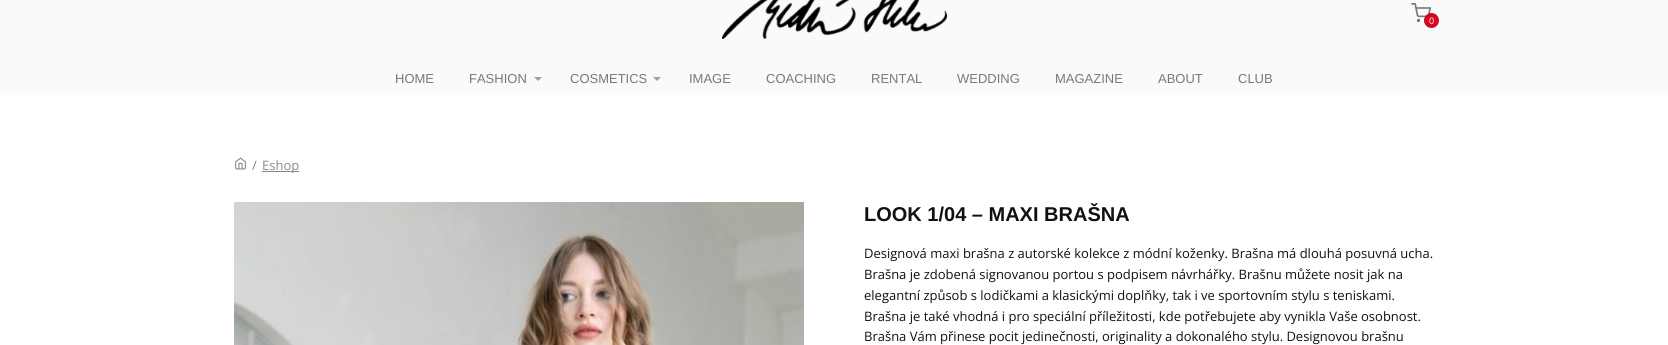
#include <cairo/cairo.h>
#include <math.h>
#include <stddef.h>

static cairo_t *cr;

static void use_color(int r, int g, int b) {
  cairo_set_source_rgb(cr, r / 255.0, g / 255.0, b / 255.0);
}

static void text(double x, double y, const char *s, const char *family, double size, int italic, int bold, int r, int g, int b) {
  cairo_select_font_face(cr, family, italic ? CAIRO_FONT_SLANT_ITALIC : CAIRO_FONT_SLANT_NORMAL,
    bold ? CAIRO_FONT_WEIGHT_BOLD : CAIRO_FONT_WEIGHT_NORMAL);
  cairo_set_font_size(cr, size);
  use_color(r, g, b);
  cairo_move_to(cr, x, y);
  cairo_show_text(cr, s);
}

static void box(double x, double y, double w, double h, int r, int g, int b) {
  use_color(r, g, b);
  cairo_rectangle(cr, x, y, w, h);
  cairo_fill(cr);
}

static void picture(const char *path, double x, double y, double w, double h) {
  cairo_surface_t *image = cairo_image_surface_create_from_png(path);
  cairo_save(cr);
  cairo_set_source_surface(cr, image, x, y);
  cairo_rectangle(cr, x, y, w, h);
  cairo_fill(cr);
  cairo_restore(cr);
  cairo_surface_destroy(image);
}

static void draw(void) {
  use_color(255, 255, 255);
  cairo_paint(cr);
  box(0, 0, 1668, 95, 250, 250, 250);
  picture("img_01.png", 722, 0, 225, 39);
  picture("img_02.png", 1411, 3, 20, 20);
  use_color(211, 8, 32);
  cairo_arc(cr, 1431.5, 20.5, 7.5, 0, 2 * M_PI);
  cairo_fill(cr);
  use_color(159, 159, 159);
  cairo_new_path(cr);
  cairo_move_to(cr, 534, 77);
  cairo_line_to(cr, 542, 77);
  cairo_line_to(cr, 538, 81);
  cairo_close_path(cr);
  cairo_fill(cr);
  cairo_new_path(cr);
  cairo_move_to(cr, 653, 77);
  cairo_line_to(cr, 661, 77);
  cairo_line_to(cr, 657, 81);
  cairo_close_path(cr);
  cairo_fill(cr);
  picture("img_03.png", 235, 157, 11, 13);
  box(262, 171, 37, 1, 136, 136, 136);
  picture("img_04.png", 234, 202, 570, 143);
  text(1429, 24, "0", "Open Sans", 9, 0, 0, 255, 255, 255);
  text(395, 83, "HOME", "Liberation Sans", 13, 0, 0, 120, 120, 120);
  text(469, 83, "FASHION", "Liberation Sans", 13, 0, 0, 120, 120, 120);
  text(570, 83, "COSMETICS", "Liberation Sans", 13, 0, 0, 120, 120, 120);
  text(689, 83, "IMAGE", "Liberation Sans", 13, 0, 0, 120, 120, 120);
  text(766, 83, "COACHING", "Liberation Sans", 13, 0, 0, 120, 120, 120);
  text(871, 83, "RENTAL", "Liberation Sans", 13, 0, 0, 120, 120, 120);
  text(957, 83, "WEDDING", "Liberation Sans", 13, 0, 0, 120, 120, 120);
  text(1055, 83, "MAGAZINE", "Liberation Sans", 13, 0, 0, 120, 120, 120);
  text(1158, 83, "ABOUT", "Liberation Sans", 13, 0, 0, 120, 120, 120);
  text(1238, 83, "CLUB", "Liberation Sans", 13, 0, 0, 120, 120, 120);
  text(252, 170, "/", "Open Sans", 13, 0, 0, 136, 136, 136);
  text(262, 170, "Eshop", "Open Sans", 13, 0, 0, 136, 136, 136);
  text(864, 221, "LOOK 1/04 – MAXI BRAŠNA", "Liberation Sans", 20, 0, 1, 17, 17, 17);
  text(864, 258, "Designová maxi brašna z autorské kolekce z módní koženky. Brašna má dlouhá posuvná ucha.", "Open Sans", 13, 0, 0, 17, 17, 17);
  text(864, 279, "Brašna je zdobená signovanou portou s podpisem návrhářky. Brašnu můžete nosit jak na", "Open Sans", 13, 0, 0, 17, 17, 17);
  text(864, 300, "elegantní způsob s lodičkami a klasickými doplňky, tak i ve sportovním stylu s teniskami.", "Open Sans", 13, 0, 0, 17, 17, 17);
  text(864, 321, "Brašna je také vhodná i pro speciální příležitosti, kde potřebujete aby vynikla Vaše osobnost.", "Open Sans", 13, 0, 0, 17, 17, 17);
  text(864, 341, "Brašna Vám přinese pocit jedinečnosti, originality a dokonalého stylu. Designovou brašnu", "Open Sans", 13, 0, 0, 17, 17, 17);
}

int main(void) {
  cairo_surface_t *surface = cairo_image_surface_create(CAIRO_FORMAT_RGB24, 1668, 345);
  cr = cairo_create(surface);
  cairo_font_options_t *options = cairo_font_options_create();
  cairo_font_options_set_hint_metrics(options, CAIRO_HINT_METRICS_OFF);
  cairo_font_options_set_hint_style(options, CAIRO_HINT_STYLE_NONE);
  cairo_set_font_options(cr, options);
  cairo_set_miter_limit(cr, 4);
  draw();
  cairo_surface_write_to_png(surface, "out.png");
  cairo_font_options_destroy(options);
  cairo_destroy(cr);
  cairo_surface_destroy(surface);
  return 0;
}
